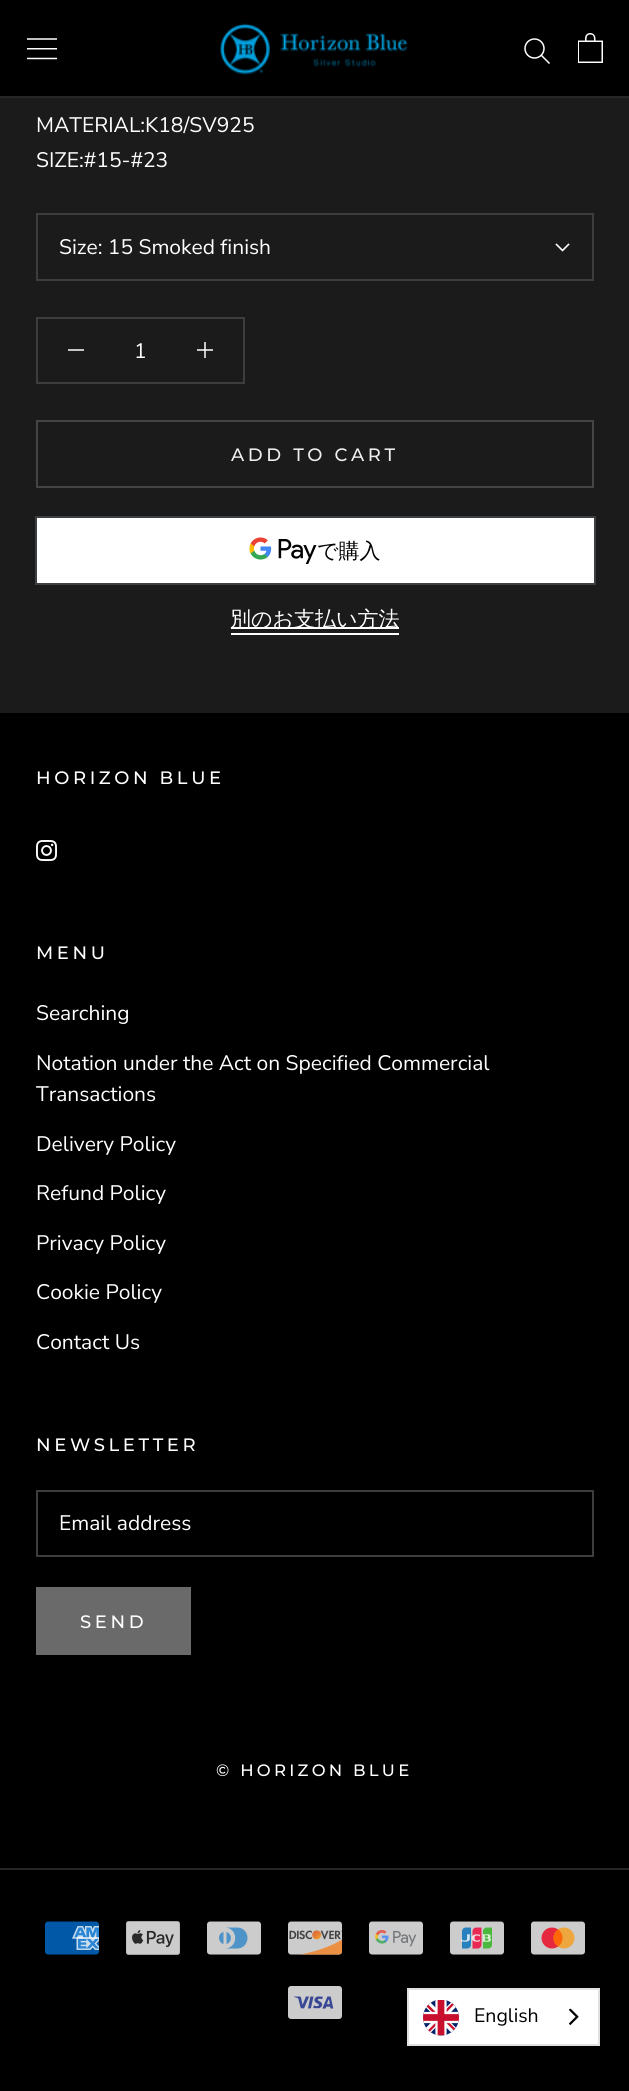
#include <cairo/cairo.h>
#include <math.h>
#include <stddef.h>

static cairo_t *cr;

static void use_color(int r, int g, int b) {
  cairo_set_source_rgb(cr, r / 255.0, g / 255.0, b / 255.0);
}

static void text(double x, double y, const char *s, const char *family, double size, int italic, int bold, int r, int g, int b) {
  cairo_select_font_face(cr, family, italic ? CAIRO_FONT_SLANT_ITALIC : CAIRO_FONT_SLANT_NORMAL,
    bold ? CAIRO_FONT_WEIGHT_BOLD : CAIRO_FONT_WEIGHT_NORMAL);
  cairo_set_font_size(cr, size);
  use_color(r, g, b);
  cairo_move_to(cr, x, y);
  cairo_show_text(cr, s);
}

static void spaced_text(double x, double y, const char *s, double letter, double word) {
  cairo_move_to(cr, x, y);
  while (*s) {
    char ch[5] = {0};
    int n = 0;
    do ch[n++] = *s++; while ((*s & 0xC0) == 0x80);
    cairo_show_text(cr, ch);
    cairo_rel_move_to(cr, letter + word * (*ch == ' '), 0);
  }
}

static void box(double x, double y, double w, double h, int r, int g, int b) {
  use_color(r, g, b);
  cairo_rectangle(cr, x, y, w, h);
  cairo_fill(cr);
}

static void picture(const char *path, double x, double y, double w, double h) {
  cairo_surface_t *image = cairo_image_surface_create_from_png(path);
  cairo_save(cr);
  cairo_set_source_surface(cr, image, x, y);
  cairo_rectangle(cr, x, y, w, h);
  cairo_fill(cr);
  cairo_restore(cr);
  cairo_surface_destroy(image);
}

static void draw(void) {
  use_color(28, 27, 27);
  cairo_paint(cr);
  box(197, 349, 16, 2, 198, 198, 198);
  box(0, 0, 629, 96, 0, 0, 0);
  box(0, 96, 629, 2, 38, 38, 38);
  picture("img_01.png", 27, 38, 30, 22);
  picture("img_02.png", 220, 23, 188, 52);
  cairo_new_path(cr);
  cairo_move_to(cr, 549, 63);
  cairo_line_to(cr, 541.5, 55.5);
  use_color(255, 255, 255);
  cairo_set_line_width(cr, 1.5);
  cairo_set_line_cap(cr, CAIRO_LINE_CAP_SQUARE);
  cairo_stroke(cr);
  cairo_arc(cr, 534.5, 48.5, 9.5, 0, 2 * M_PI);
  cairo_set_line_cap(cr, CAIRO_LINE_CAP_BUTT);
  cairo_stroke(cr);
  picture("img_03.png", 578, 33, 25, 30);
  cairo_rectangle(cr, 37, 214, 556, 66);
  use_color(62, 61, 61);
  cairo_set_line_width(cr, 2);
  cairo_stroke(cr);
  cairo_new_path(cr);
  cairo_move_to(cr, 568.5, 244.5);
  cairo_line_to(cr, 562.5, 250.5);
  cairo_line_to(cr, 556.5, 244.5);
  use_color(255, 255, 255);
  cairo_set_line_width(cr, 1.6);
  cairo_set_line_cap(cr, CAIRO_LINE_CAP_SQUARE);
  cairo_stroke(cr);
  cairo_rectangle(cr, 37, 318, 207, 65);
  use_color(62, 61, 61);
  cairo_set_line_width(cr, 2);
  cairo_set_line_cap(cr, CAIRO_LINE_CAP_BUTT);
  cairo_stroke(cr);
  box(68, 349, 16, 2, 198, 198, 198);
  box(204, 342, 2, 16, 198, 198, 198);
  box(204, 349, 2, 2, 241, 241, 241);
  cairo_rectangle(cr, 37, 421, 556, 66);
  use_color(70, 69, 69);
  cairo_stroke(cr);
  box(37, 518, 557, 65, 255, 255, 255);
  cairo_rectangle(cr, 36, 517, 559, 67);
  use_color(60, 64, 67);
  cairo_stroke(cr);
  picture("img_04.png", 249, 537, 68, 27);
  box(231, 627, 168, 2, 255, 255, 255);
  box(231, 633, 168, 2, 255, 255, 255);
  box(0, 713, 629, 1378, 0, 0, 0);
  picture("img_05.png", 36, 840, 21, 21);
  cairo_rectangle(cr, 37, 1491, 556, 65);
  use_color(62, 61, 61);
  cairo_stroke(cr);
  cairo_rectangle(cr, 37, 1588, 153, 66);
  use_color(106, 106, 106);
  cairo_stroke(cr);
  box(38, 1589, 151, 64, 106, 106, 106);
  box(0, 1868, 629, 2, 38, 38, 38);
  picture("img_06.png", 45, 1921, 54, 34);
  picture("img_07.png", 126, 1921, 54, 34);
  picture("img_08.png", 207, 1921, 54, 34);
  picture("img_09.png", 288, 1921, 55, 34);
  picture("img_10.png", 369, 1921, 54, 34);
  picture("img_11.png", 450, 1921, 54, 34);
  picture("img_12.png", 531, 1921, 54, 34);
  picture("img_13.png", 288, 1986, 54, 33);
  use_color(255, 255, 255);
  cairo_rectangle(cr, 408, 1989, 191, 56);
  cairo_fill_preserve(cr);
  use_color(224, 224, 224);
  cairo_stroke(cr);
  picture("img_14.png", 423, 2000, 36, 36);
  picture("img_15.png", 569, 2008, 10, 17);
  text(36, 132, "MATERIAL:K18/SV925", "Nunito Sans", 21, 0, 0, 255, 255, 255);
  text(36, 167, "SIZE:#15-#23", "Nunito Sans", 21, 0, 0, 255, 255, 255);
  text(59, 254, "Size: 15 Smoked finish", "Nunito Sans", 21, 0, 0, 255, 255, 255);
  text(134, 358, "1", "Nunito Sans", 21, 0, 0, 255, 255, 255);
  cairo_select_font_face(cr, "Montserrat Medium", CAIRO_FONT_SLANT_NORMAL, CAIRO_FONT_WEIGHT_NORMAL);
  cairo_set_font_size(cr, 18);
  use_color(239, 239, 239);
  spaced_text(231, 461, "ADD TO CART", 3.6, 0);
  text(317, 558, "で購入", "WenQuanYi Zen Hei Medium", 21, 0, 0, 0, 0, 0);
  text(230, 626, "別のお支払い方法", "WenQuanYi Zen Hei Medium", 21, 0, 0, 255, 255, 255);
  cairo_select_font_face(cr, "Montserrat Medium", CAIRO_FONT_SLANT_NORMAL, CAIRO_FONT_WEIGHT_NORMAL);
  cairo_set_font_size(cr, 18);
  spaced_text(36, 784, "HORIZON BLUE", 3.6, 0);
  spaced_text(36, 959, "MENU", 3.6, 0);
  text(36, 1020, "Searching", "Nunito Sans", 21, 0, 0, 255, 255, 255);
  text(36, 1070, "Notation under the Act on Specified Commercial", "Nunito Sans", 21, 0, 0, 255, 255, 255);
  text(36, 1101, "Transactions", "Nunito Sans", 21, 0, 0, 255, 255, 255);
  text(36, 1151, "Delivery Policy", "Nunito Sans", 21, 0, 0, 255, 255, 255);
  text(36, 1200, "Refund Policy", "Nunito Sans", 21, 0, 0, 255, 255, 255);
  text(36, 1250, "Privacy Policy", "Nunito Sans", 21, 0, 0, 255, 255, 255);
  text(36, 1299, "Cookie Policy", "Nunito Sans", 21, 0, 0, 255, 255, 255);
  text(36, 1349, "Contact Us", "Nunito Sans", 21, 0, 0, 255, 255, 255);
  cairo_select_font_face(cr, "Montserrat Medium", CAIRO_FONT_SLANT_NORMAL, CAIRO_FONT_WEIGHT_NORMAL);
  cairo_set_font_size(cr, 18);
  spaced_text(36, 1451, "NEWSLETTER", 3.6, 0);
  text(59, 1530, "Email address", "Nunito Sans", 21, 0, 0, 255, 255, 255);
  cairo_select_font_face(cr, "Montserrat Medium", CAIRO_FONT_SLANT_NORMAL, CAIRO_FONT_WEIGHT_NORMAL);
  cairo_set_font_size(cr, 18);
  spaced_text(80, 1628, "SEND", 3.6, 0);
  cairo_set_font_size(cr, 16.5);
  spaced_text(216, 1776, "© HORIZON BLUE", 3.25, 0);
  text(474, 2022, "English", "Nunito Sans", 19.5, 0, 0, 0, 0, 0);
}

int main(void) {
  cairo_surface_t *surface = cairo_image_surface_create(CAIRO_FORMAT_RGB24, 629, 2091);
  cr = cairo_create(surface);
  cairo_font_options_t *options = cairo_font_options_create();
  cairo_font_options_set_hint_metrics(options, CAIRO_HINT_METRICS_OFF);
  cairo_font_options_set_hint_style(options, CAIRO_HINT_STYLE_NONE);
  cairo_set_font_options(cr, options);
  cairo_set_miter_limit(cr, 4);
  draw();
  cairo_surface_write_to_png(surface, "out.png");
  cairo_font_options_destroy(options);
  cairo_destroy(cr);
  cairo_surface_destroy(surface);
  return 0;
}
